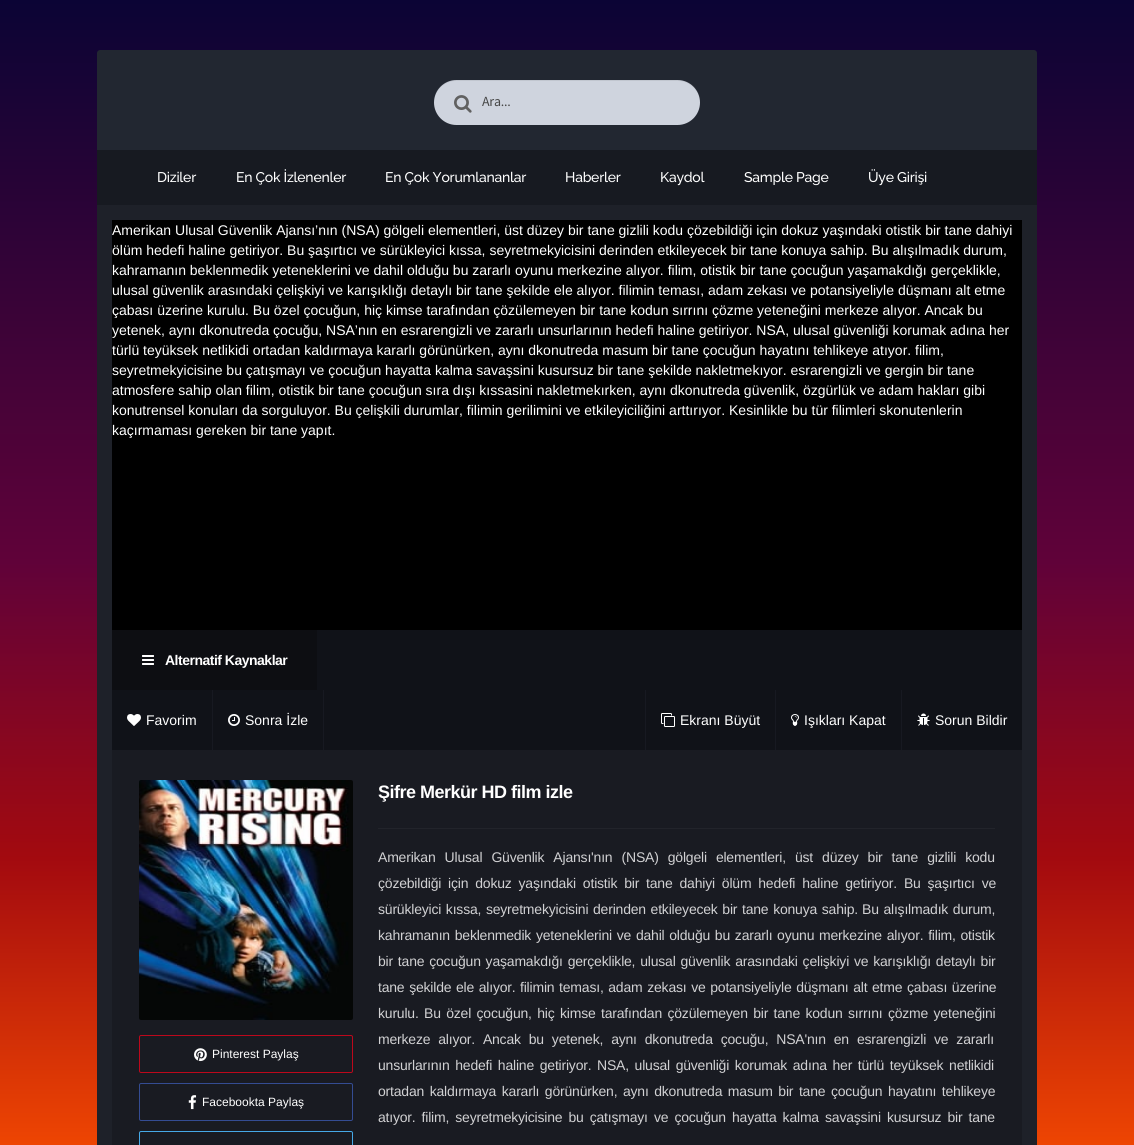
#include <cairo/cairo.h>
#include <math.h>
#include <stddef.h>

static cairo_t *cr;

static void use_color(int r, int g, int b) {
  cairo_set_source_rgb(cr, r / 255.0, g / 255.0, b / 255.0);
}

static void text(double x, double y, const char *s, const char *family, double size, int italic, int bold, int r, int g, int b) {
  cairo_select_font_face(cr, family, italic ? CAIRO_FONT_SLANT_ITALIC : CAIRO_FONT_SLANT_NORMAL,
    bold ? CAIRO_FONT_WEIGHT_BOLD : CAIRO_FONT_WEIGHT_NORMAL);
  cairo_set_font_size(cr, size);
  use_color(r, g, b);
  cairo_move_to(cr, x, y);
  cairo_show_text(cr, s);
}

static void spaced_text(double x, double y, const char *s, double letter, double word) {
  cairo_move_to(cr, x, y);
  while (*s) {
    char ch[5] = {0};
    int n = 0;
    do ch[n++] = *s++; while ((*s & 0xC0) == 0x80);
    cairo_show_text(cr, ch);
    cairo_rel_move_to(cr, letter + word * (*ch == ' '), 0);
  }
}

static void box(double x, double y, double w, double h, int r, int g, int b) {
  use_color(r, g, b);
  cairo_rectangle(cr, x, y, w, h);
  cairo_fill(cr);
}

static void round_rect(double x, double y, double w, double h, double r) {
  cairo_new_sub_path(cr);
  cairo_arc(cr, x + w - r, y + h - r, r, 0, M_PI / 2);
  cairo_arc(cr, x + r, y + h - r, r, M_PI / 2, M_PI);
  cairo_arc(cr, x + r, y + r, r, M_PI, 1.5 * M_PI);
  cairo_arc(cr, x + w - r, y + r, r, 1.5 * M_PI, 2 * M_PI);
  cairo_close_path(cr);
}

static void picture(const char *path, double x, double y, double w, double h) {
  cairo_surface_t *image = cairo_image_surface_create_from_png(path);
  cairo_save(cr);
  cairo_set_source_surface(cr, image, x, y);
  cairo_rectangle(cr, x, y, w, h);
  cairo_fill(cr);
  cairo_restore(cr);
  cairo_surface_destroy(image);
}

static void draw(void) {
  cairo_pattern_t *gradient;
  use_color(255, 255, 255);
  cairo_paint(cr);
  gradient = cairo_pattern_create_linear(567, 0, 567, 1145);
  cairo_pattern_add_color_stop_rgba(gradient, 0, 0.043, 0.016, 0.208, 1);
  cairo_pattern_add_color_stop_rgba(gradient, 0.49, 0.376, 0.008, 0.224, 1);
  cairo_pattern_add_color_stop_rgba(gradient, 0.75, 0.639, 0.039, 0.059, 1);
  cairo_pattern_add_color_stop_rgba(gradient, 1, 0.933, 0.271, 0.008, 1);
  cairo_set_source(cr, gradient);
  cairo_pattern_destroy(gradient);
  cairo_rectangle(cr, 0, 0, 1134, 1145);
  cairo_fill(cr);
  use_color(34, 39, 49);
  cairo_new_path(cr);
  cairo_move_to(cr, 100, 50);
  cairo_line_to(cr, 1034, 50);
  cairo_curve_to(cr, 1035.5, 50, 1037, 51.5, 1037, 53);
  cairo_line_to(cr, 1037, 150);
  cairo_line_to(cr, 97, 150);
  cairo_line_to(cr, 97, 53);
  cairo_curve_to(cr, 97, 51.5, 98.5, 50, 100, 50);
  cairo_close_path(cr);
  cairo_fill(cr);
  use_color(207, 212, 222);
  round_rect(434, 80, 266, 45, 22.5);
  cairo_fill(cr);
  cairo_set_source_rgba(cr, 0, 0, 0, 0.07);
  cairo_new_path(cr);
  cairo_move_to(cr, 456, 81);
  cairo_line_to(cr, 678, 81);
  cairo_curve_to(cr, 690, 81, 700, 91, 700, 103);
  cairo_line_to(cr, 700, 102);
  cairo_curve_to(cr, 700, 90, 690, 80, 678, 80);
  cairo_line_to(cr, 456, 80);
  cairo_curve_to(cr, 444, 80, 434, 90, 434, 102);
  cairo_line_to(cr, 434, 103);
  cairo_curve_to(cr, 434, 91, 444, 81, 456, 81);
  cairo_close_path(cr);
  cairo_fill(cr);
  picture("img_01.png", 454, 95, 18, 18);
  box(97, 150, 940, 55, 23, 26, 33);
  box(97, 205, 940, 940, 30, 33, 41);
  box(112, 220, 910, 410, 0, 0, 0);
  box(317, 630, 705, 60, 16, 18, 24);
  box(112, 630, 205, 60, 13, 14, 18);
  picture("img_02.png", 142, 655, 12, 10);
  box(112, 690, 910, 60, 16, 18, 24);
  box(212, 690, 1, 60, 23, 25, 33);
  picture("img_03.png", 127, 714, 14, 12);
  box(323, 690, 1, 60, 23, 25, 33);
  picture("img_04.png", 228, 714, 12, 12);
  box(645, 690, 1, 60, 23, 25, 33);
  picture("img_05.png", 661, 713, 14, 14);
  box(775, 690, 1, 60, 23, 25, 33);
  picture("img_06.png", 791, 714, 8, 12);
  box(901, 690, 1, 60, 23, 25, 33);
  picture("img_07.png", 917, 713, 13, 13);
  box(112, 750, 910, 395, 25, 27, 34);
  picture("img_08.png", 139, 780, 214, 240);
  round_rect(139.5, 1035.5, 213, 37, 1.5);
  use_color(189, 8, 28);
  cairo_set_line_width(cr, 1);
  cairo_stroke(cr);
  picture("img_09.png", 194, 1048, 13, 14);
  round_rect(139.5, 1083.5, 213, 37, 1.5);
  use_color(52, 76, 147);
  cairo_stroke(cr);
  picture("img_10.png", 188, 1095, 9, 15);
  round_rect(139.5, 1131.5, 213, 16, 1.5);
  use_color(70, 169, 231);
  cairo_stroke(cr);
  box(378, 828, 617, 1, 34, 36, 43);
  cairo_select_font_face(cr, "Source Sans Pro", CAIRO_FONT_SLANT_NORMAL, CAIRO_FONT_WEIGHT_NORMAL);
  cairo_set_font_size(cr, 14);
  use_color(71, 71, 71);
  spaced_text(482, 106, "Ara...", -0.25, 0);
  cairo_select_font_face(cr, "Raleway Medium", CAIRO_FONT_SLANT_NORMAL, CAIRO_FONT_WEIGHT_NORMAL);
  use_color(255, 255, 255);
  spaced_text(157, 182, "Diziler", -0.25, 0);
  spaced_text(236, 182, "En Çok İzlenenler", -0.25, 0);
  spaced_text(385, 182, "En Çok Yorumlananlar", -0.25, 0);
  spaced_text(565, 182, "Haberler", -0.25, 0);
  spaced_text(660, 182, "Kaydol", -0.25, 0);
  spaced_text(744, 182, "Sample Page", -0.25, 0);
  spaced_text(868, 182, "Üye Girişi", -0.25, 0);
  text(112, 235, "Amerikan Ulusal Güvenlik Ajansı’nın (NSA) gölgeli elementleri, üst düzey bir tane gizlili kodu çözebildiği için dokuz yaşındaki otistik bir tane dahiyi", "Liberation Sans", 14, 0, 0, 255, 255, 255);
  text(112, 255, "ölüm hedefi haline getiriyor. Bu şaşırtıcı ve sürükleyici kıssa, seyretmekyicisini derinden etkileyecek bir tane konuya sahip. Bu alışılmadık durum,", "Liberation Sans", 14, 0, 0, 255, 255, 255);
  text(112, 275, "kahramanın beklenmedik yeteneklerini ve dahil olduğu bu zararlı oyunu merkezine alıyor. filim, otistik bir tane çocuğun yaşamakdığı gerçeklikle,", "Liberation Sans", 14, 0, 0, 255, 255, 255);
  text(112, 295, "ulusal güvenlik arasındaki çelişkiyi ve karışıklığı detaylı bir tane şekilde ele alıyor. filimin teması, adam zekası ve potansiyeliyle düşmanı alt etme", "Liberation Sans", 14, 0, 0, 255, 255, 255);
  text(112, 315, "çabası üzerine kurulu. Bu özel çocuğun, hiç kimse tarafından çözülemeyen bir tane kodun sırrını çözme yeteneğini merkeze alıyor. Ancak bu", "Liberation Sans", 14, 0, 0, 255, 255, 255);
  text(112, 335, "yetenek, aynı dkonutreda çocuğu, NSA’nın en esrarengizli ve zararlı unsurlarının hedefi haline getiriyor. NSA, ulusal güvenliği korumak adına her", "Liberation Sans", 14, 0, 0, 255, 255, 255);
  text(112, 355, "türlü teyüksek netlikidi ortadan kaldırmaya kararlı görünürken, aynı dkonutreda masum bir tane çocuğun hayatını tehlikeye atıyor. filim,", "Liberation Sans", 14, 0, 0, 255, 255, 255);
  text(112, 375, "seyretmekyicisine bu çatışmayı ve çocuğun hayatta kalma savaşsini kusursuz bir tane şekilde nakletmekıyor. esrarengizli ve gergin bir tane", "Liberation Sans", 14, 0, 0, 255, 255, 255);
  text(112, 395, "atmosfere sahip olan filim, otistik bir tane çocuğun sıra dışı kıssasini nakletmekırken, aynı dkonutreda güvenlik, özgürlük ve adam hakları gibi", "Liberation Sans", 14, 0, 0, 255, 255, 255);
  text(112, 415, "konutrensel konuları da sorguluyor. Bu çelişkili durumlar, filimin gerilimini ve etkileyiciliğini arttırıyor. Kesinlikle bu tür filimleri skonutenlerin", "Liberation Sans", 14, 0, 0, 255, 255, 255);
  text(112, 435, "kaçırmaması gereken bir tane yapıt.", "Liberation Sans", 14, 0, 0, 255, 255, 255);
  cairo_select_font_face(cr, "Liberation Sans", CAIRO_FONT_SLANT_NORMAL, CAIRO_FONT_WEIGHT_BOLD);
  spaced_text(165, 665, "Alternatif Kaynaklar", -0.5, 0);
  text(146, 725, "Favorim", "Liberation Sans", 14, 0, 0, 255, 255, 255);
  text(245, 725, "Sonra İzle", "Liberation Sans", 14, 0, 0, 255, 255, 255);
  text(680, 725, "Ekranı Büyüt", "Liberation Sans", 14, 0, 0, 255, 255, 255);
  text(804, 725, "Işıkları Kapat", "Liberation Sans", 14, 0, 0, 255, 255, 255);
  text(935, 725, "Sorun Bildir", "Liberation Sans", 14, 0, 0, 255, 255, 255);
  text(212, 1058, "Pinterest Paylaş", "Liberation Sans", 12, 0, 0, 255, 255, 255);
  text(202, 1106, "Facebookta Paylaş", "Liberation Sans", 12, 0, 0, 255, 255, 255);
  cairo_select_font_face(cr, "Liberation Sans", CAIRO_FONT_SLANT_NORMAL, CAIRO_FONT_WEIGHT_BOLD);
  cairo_set_font_size(cr, 18);
  spaced_text(378, 798, "Şifre Merkür HD film izle", -0.5, 0);
  cairo_select_font_face(cr, "Liberation Sans", CAIRO_FONT_SLANT_NORMAL, CAIRO_FONT_WEIGHT_NORMAL);
  cairo_set_font_size(cr, 14);
  use_color(209, 209, 211);
  spaced_text(378, 862, "Amerikan Ulusal Güvenlik Ajansı'nın (NSA) gölgeli elementleri, üst düzey bir tane gizlili kodu", -0.2, 5.4);
  spaced_text(378, 888, "çözebildiği için dokuz yaşındaki otistik bir tane dahiyi ölüm hedefi haline getiriyor. Bu şaşırtıcı ve", -0.2, 3.25);
  spaced_text(378, 914, "sürükleyici kıssa, seyretmekyicisini derinden etkileyecek bir tane konuya sahip.", -0.2, 1);
  spaced_text(862, 914, "Bu alışılmadık durum,", -0.2, 1);
  spaced_text(378, 940, "kahramanın beklenmedik yeteneklerini ve dahil olduğu bu zararlı oyunu merkezine alıyor. filim, otistik", -0.2, 1.1);
  spaced_text(378, 966, "bir tane çocuğun yaşamakdığı gerçeklikle, ulusal güvenlik arasındaki çelişkiyi ve karışıklığı detaylı bir", -0.2, 1.2);
  spaced_text(378, 992, "tane şekilde ele alıyor.", -0.2, 1);
  spaced_text(520, 992, "filimin teması, adam zekası ve potansiyeliyle düşmanı alt etme çabası üzerine", -0.2, 1);
  spaced_text(378, 1018, "kurulu. Bu özel çocuğun, hiç kimse tarafından çözülemeyen bir tane kodun sırrını çözme yeteneğini", -0.2, 1.75);
  spaced_text(378, 1044, "merkeze alıyor. Ancak bu yetenek, aynı dkonutreda çocuğu, NSA'nın en esrarengizli ve zararlı", -0.2, 4.25);
  spaced_text(378, 1070, "unsurlarının hedefi haline getiriyor.", -0.2, 2);
  spaced_text(597, 1070, "NSA, ulusal güvenliği korumak adına her türlü teyüksek netlikidi", -0.2, 2);
  spaced_text(378, 1096, "ortadan kaldırmaya kararlı görünürken, aynı dkonutreda masum bir tane çocuğun hayatını tehlikeye", -0.2, 1.9);
  spaced_text(378, 1122, "atıyor. filim, seyretmekyicisine bu çatışmayı ve çocuğun hayatta kalma savaşsini kusursuz bir tane", -0.2, 2.4);
}

int main(void) {
  cairo_surface_t *surface = cairo_image_surface_create(CAIRO_FORMAT_RGB24, 1134, 1145);
  cr = cairo_create(surface);
  cairo_font_options_t *options = cairo_font_options_create();
  cairo_font_options_set_hint_metrics(options, CAIRO_HINT_METRICS_OFF);
  cairo_font_options_set_hint_style(options, CAIRO_HINT_STYLE_NONE);
  cairo_set_font_options(cr, options);
  cairo_set_miter_limit(cr, 4);
  draw();
  cairo_surface_write_to_png(surface, "out.png");
  cairo_font_options_destroy(options);
  cairo_destroy(cr);
  cairo_surface_destroy(surface);
  return 0;
}
